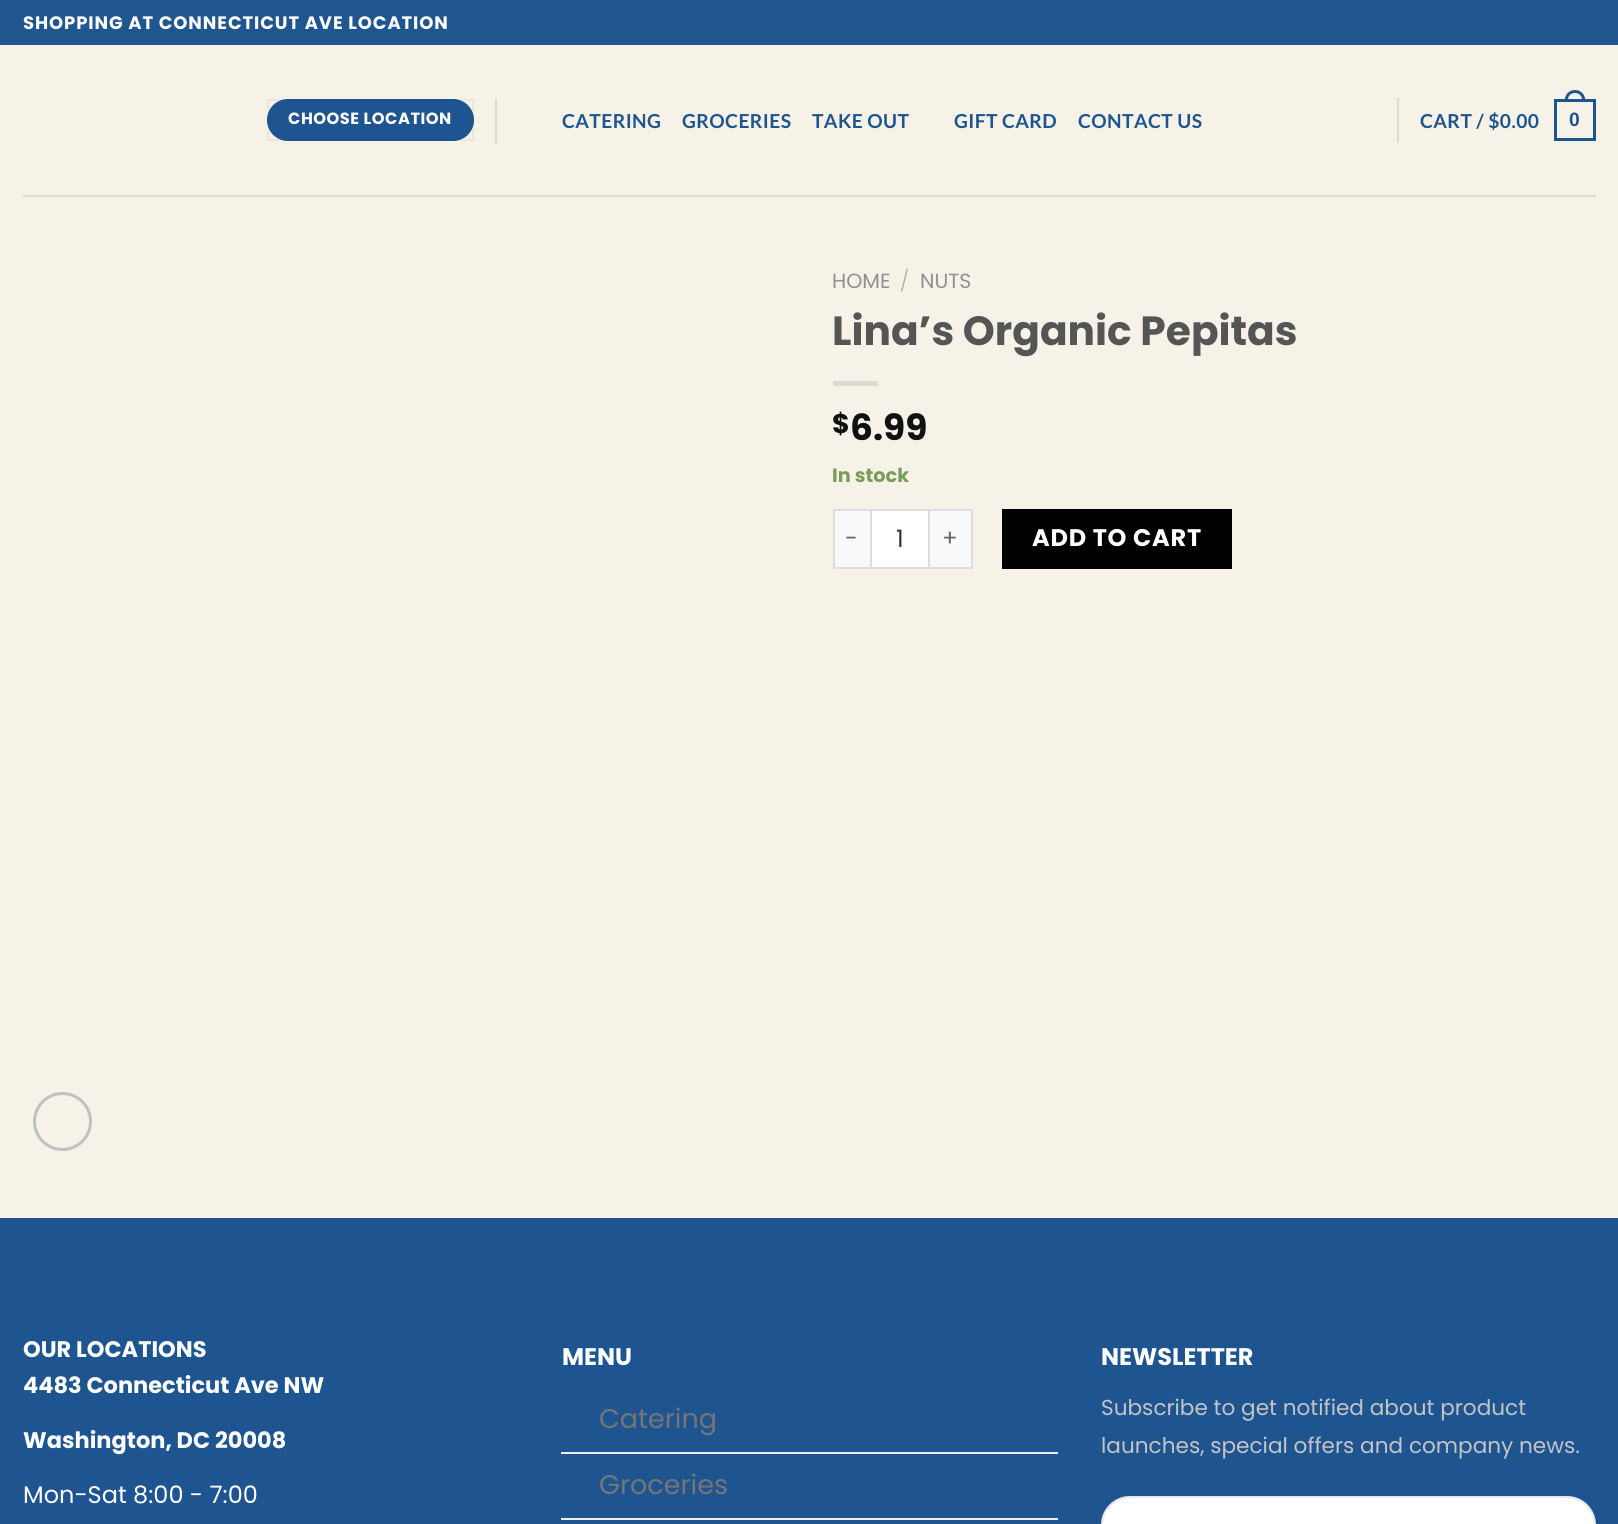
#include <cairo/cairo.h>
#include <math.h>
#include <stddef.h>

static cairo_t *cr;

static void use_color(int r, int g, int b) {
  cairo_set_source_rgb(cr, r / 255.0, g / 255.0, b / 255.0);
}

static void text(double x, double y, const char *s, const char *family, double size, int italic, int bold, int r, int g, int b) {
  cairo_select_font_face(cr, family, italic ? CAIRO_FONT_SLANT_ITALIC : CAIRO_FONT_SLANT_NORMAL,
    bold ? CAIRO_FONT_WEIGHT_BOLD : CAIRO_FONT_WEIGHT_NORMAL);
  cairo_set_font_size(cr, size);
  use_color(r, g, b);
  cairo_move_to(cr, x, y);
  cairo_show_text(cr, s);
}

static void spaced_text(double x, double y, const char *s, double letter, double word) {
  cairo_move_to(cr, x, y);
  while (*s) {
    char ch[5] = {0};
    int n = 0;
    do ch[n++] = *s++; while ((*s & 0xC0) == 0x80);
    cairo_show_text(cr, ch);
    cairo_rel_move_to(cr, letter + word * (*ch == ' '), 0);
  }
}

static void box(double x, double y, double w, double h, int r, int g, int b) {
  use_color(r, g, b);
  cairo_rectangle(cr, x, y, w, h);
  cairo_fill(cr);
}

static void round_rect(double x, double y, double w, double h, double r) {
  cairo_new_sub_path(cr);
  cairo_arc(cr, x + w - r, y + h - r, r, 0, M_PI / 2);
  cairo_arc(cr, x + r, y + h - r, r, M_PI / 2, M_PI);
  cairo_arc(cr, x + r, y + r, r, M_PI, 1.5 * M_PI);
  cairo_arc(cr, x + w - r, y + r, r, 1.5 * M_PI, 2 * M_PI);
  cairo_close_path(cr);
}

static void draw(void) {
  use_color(246, 242, 232);
  cairo_paint(cr);
  box(0, 0, 1618, 45, 31, 86, 143);
  use_color(30, 85, 144);
  round_rect(267, 99, 207, 42, 21);
  cairo_fill(cr);
  cairo_rectangle(cr, 268, 100, 205, 40);
  cairo_set_source_rgba(cr, 0, 0, 0, 0.05);
  cairo_stroke(cr);
  box(495, 98, 2, 45, 221, 218, 209);
  box(1397, 98, 2, 45, 221, 218, 209);
  cairo_rectangle(cr, 1555.5, 100.5, 39, 39);
  use_color(30, 85, 144);
  cairo_set_line_width(cr, 3);
  cairo_stroke(cr);
  cairo_set_fill_rule(cr, CAIRO_FILL_RULE_EVEN_ODD);
  cairo_new_path(cr);
  cairo_move_to(cr, 1575, 90);
  cairo_curve_to(cr, 1582, 90, 1585.5, 95.5, 1585.5, 102);
  cairo_line_to(cr, 1564.5, 102);
  cairo_curve_to(cr, 1564.5, 95.5, 1568, 90, 1575, 90);
  cairo_close_path(cr);
  cairo_move_to(cr, 1575, 93);
  cairo_curve_to(cr, 1580.5, 93, 1582.5, 97.5, 1582.5, 102);
  cairo_line_to(cr, 1567.5, 102);
  cairo_curve_to(cr, 1567.5, 97.5, 1569.5, 93, 1575, 93);
  cairo_close_path(cr);
  cairo_fill(cr);
  box(23, 195, 1573, 2, 221, 218, 209);
  box(833, 381, 45, 5, 221, 218, 209);
  box(835, 511, 35, 56, 249, 249, 249);
  box(833, 509, 37, 2, 221, 221, 221);
  box(833, 567, 37, 2, 221, 221, 221);
  box(833, 509, 2, 60, 221, 221, 221);
  use_color(255, 255, 255);
  cairo_rectangle(cr, 871, 510, 58, 58);
  cairo_fill_preserve(cr);
  use_color(221, 221, 221);
  cairo_set_line_width(cr, 2);
  cairo_stroke(cr);
  box(930, 511, 41, 56, 249, 249, 249);
  box(930, 509, 42, 2, 221, 221, 221);
  box(971, 509, 2, 60, 221, 221, 221);
  box(930, 567, 42, 2, 221, 221, 221);
  box(1002, 509, 230, 60, 0, 0, 0);
  cairo_arc(cr, 62.5, 1121.5, 28, 0, 2 * M_PI);
  use_color(192, 192, 192);
  cairo_set_line_width(cr, 3);
  cairo_stroke(cr);
  box(0, 1218, 1618, 306, 30, 85, 144);
  box(561, 1452, 497, 2, 236, 236, 236);
  box(561, 1518, 497, 2, 236, 236, 236);
  use_color(255, 255, 255);
  round_rect(1101, 1496, 495, 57, 29);
  cairo_fill(cr);
  round_rect(1102, 1497, 493, 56, 28);
  cairo_set_source_rgba(cr, 0, 0, 0, 0.09);
  cairo_set_line_width(cr, 2);
  cairo_stroke(cr);
  cairo_select_font_face(cr, "Poppins", CAIRO_FONT_SLANT_NORMAL, CAIRO_FONT_WEIGHT_BOLD);
  cairo_set_font_size(cr, 18);
  use_color(255, 255, 255);
  spaced_text(23, 29, "SHOPPING AT CONNECTICUT AVE LOCATION", 0.9, 0);
  cairo_set_font_size(cr, 16.25);
  spaced_text(288, 124, "CHOOSE LOCATION", 0.5, 0);
  cairo_select_font_face(cr, "Lato", CAIRO_FONT_SLANT_NORMAL, CAIRO_FONT_WEIGHT_BOLD);
  cairo_set_font_size(cr, 19.25);
  use_color(31, 85, 143);
  spaced_text(562, 128, "CATERING", 0.4, 0);
  spaced_text(682, 128, "GROCERIES", 0.4, 0);
  spaced_text(812, 128, "TAKE OUT", 0.4, 0);
  spaced_text(954, 128, "GIFT CARD", 0.4, 0);
  spaced_text(1078, 128, "CONTACT US", 0.4, 0);
  spaced_text(1420, 128, "CART / $0.00", 0.4, 0);
  cairo_select_font_face(cr, "Liberation Sans", CAIRO_FONT_SLANT_NORMAL, CAIRO_FONT_WEIGHT_BOLD);
  spaced_text(1569, 126, "0", 0.4, 0);
  text(832, 288, "HOME", "Poppins", 20.5, 0, 0, 145, 144, 141);
  text(900, 288, "/", "Poppins Light", 20.5, 0, 0, 172, 169, 163);
  text(920, 288, "NUTS", "Poppins", 20.5, 0, 0, 145, 144, 141);
  text(832, 345, "Lina’s Organic Pepitas", "Poppins", 40.75, 0, 1, 85, 85, 85);
  text(832, 433, "$", "Poppins", 27, 0, 1, 17, 17, 17);
  text(850, 440, "6.99", "Poppins", 36, 0, 1, 17, 17, 17);
  text(832, 482, "In stock", "Poppins", 19.25, 0, 1, 122, 156, 89);
  cairo_select_font_face(cr, "Poppins", CAIRO_FONT_SLANT_NORMAL, CAIRO_FONT_WEIGHT_NORMAL);
  cairo_set_font_size(cr, 23);
  use_color(102, 102, 102);
  spaced_text(845, 546, "-", 1, 0);
  text(896, 547, "1", "Poppins", 24, 0, 0, 51, 51, 51);
  cairo_set_font_size(cr, 23);
  use_color(102, 102, 102);
  spaced_text(942, 546, "+", 1, 0);
  cairo_select_font_face(cr, "Poppins", CAIRO_FONT_SLANT_NORMAL, CAIRO_FONT_WEIGHT_BOLD);
  cairo_set_font_size(cr, 24);
  use_color(255, 255, 255);
  spaced_text(1032, 546, "ADD TO CART", 0.75, 0);
  text(23, 1357, "OUR LOCATIONS", "Poppins", 22.5, 0, 1, 255, 255, 255);
  text(23, 1393, "4483 Connecticut Ave NW", "Poppins", 22.5, 0, 1, 255, 255, 255);
  text(23, 1448, "Washington, DC 20008", "Poppins", 22.5, 0, 1, 255, 255, 255);
  text(23, 1503, "Mon-Sat 8:00 - 7:00", "Poppins", 24, 0, 0, 255, 255, 255);
  text(562, 1365, "MENU", "Poppins", 24, 0, 1, 255, 255, 255);
  text(599, 1428, "Catering", "Poppins", 27, 0, 0, 117, 117, 117);
  text(599, 1494, "Groceries", "Poppins", 27, 0, 0, 117, 117, 117);
  text(1101, 1365, "NEWSLETTER", "Poppins", 24, 0, 1, 255, 255, 255);
  text(1101, 1415, "Subscribe to get notified about product", "Poppins", 21.6, 0, 0, 196, 196, 196);
  text(1101, 1453, "launches, special offers and company news.", "Poppins", 21.6, 0, 0, 196, 196, 196);
}

int main(void) {
  cairo_surface_t *surface = cairo_image_surface_create(CAIRO_FORMAT_RGB24, 1618, 1524);
  cr = cairo_create(surface);
  cairo_font_options_t *options = cairo_font_options_create();
  cairo_font_options_set_hint_metrics(options, CAIRO_HINT_METRICS_OFF);
  cairo_font_options_set_hint_style(options, CAIRO_HINT_STYLE_NONE);
  cairo_set_font_options(cr, options);
  cairo_set_miter_limit(cr, 4);
  draw();
  cairo_surface_write_to_png(surface, "out.png");
  cairo_font_options_destroy(options);
  cairo_destroy(cr);
  cairo_surface_destroy(surface);
  return 0;
}
